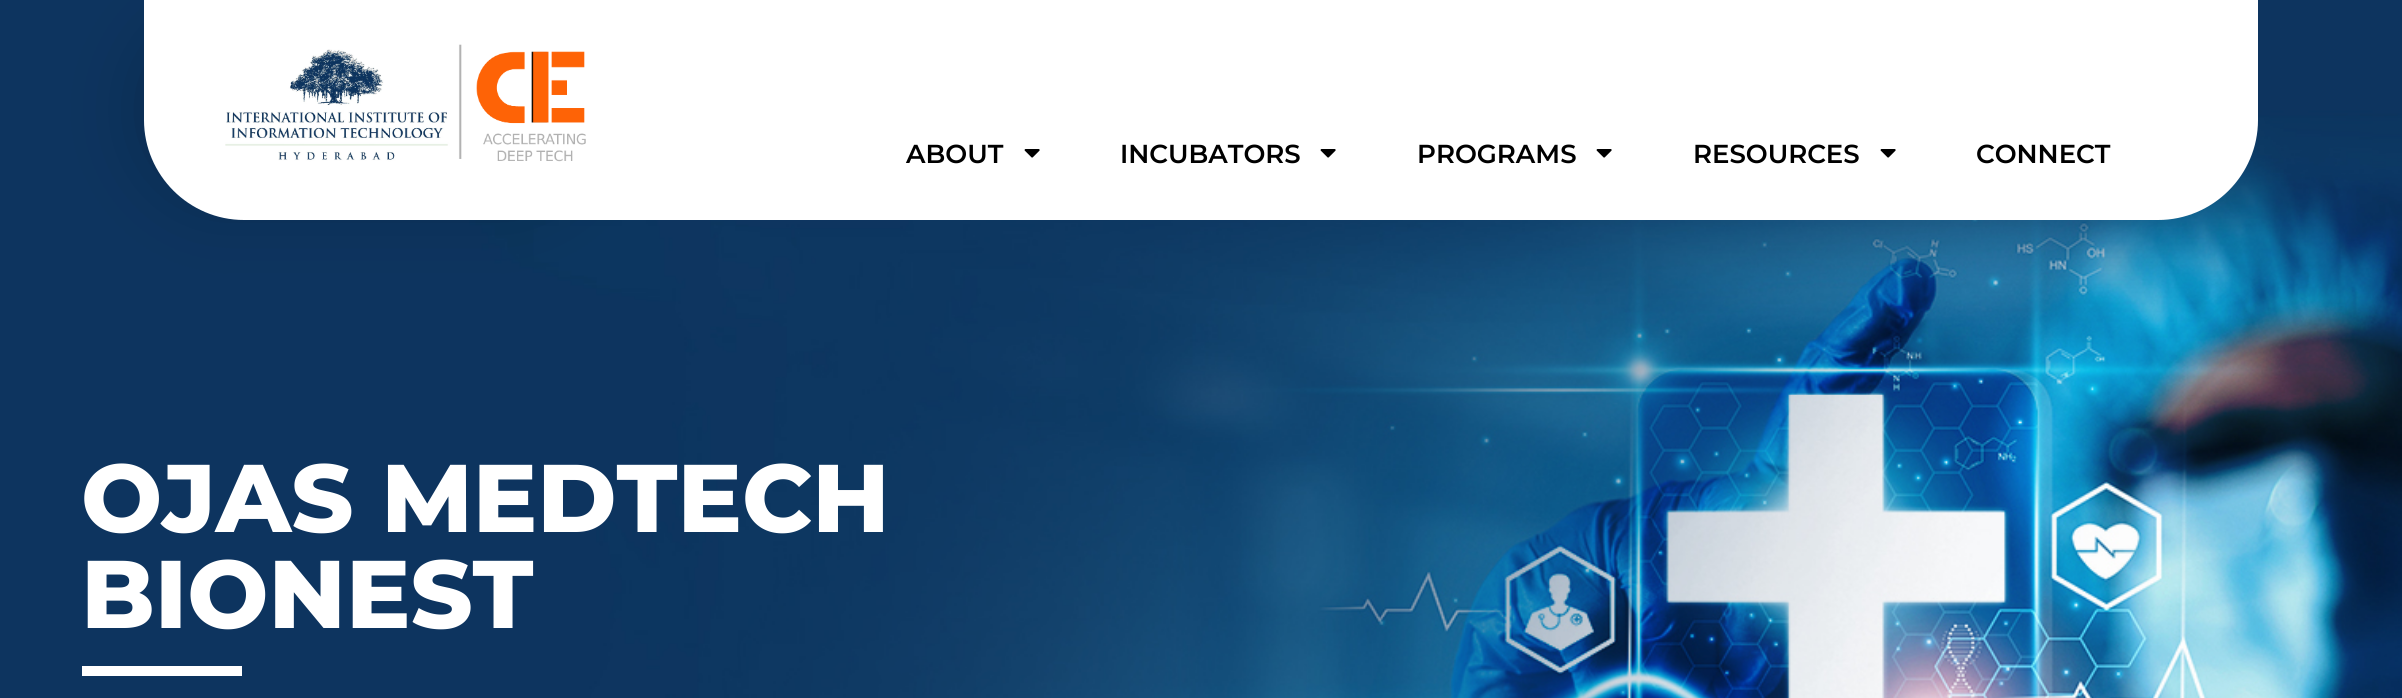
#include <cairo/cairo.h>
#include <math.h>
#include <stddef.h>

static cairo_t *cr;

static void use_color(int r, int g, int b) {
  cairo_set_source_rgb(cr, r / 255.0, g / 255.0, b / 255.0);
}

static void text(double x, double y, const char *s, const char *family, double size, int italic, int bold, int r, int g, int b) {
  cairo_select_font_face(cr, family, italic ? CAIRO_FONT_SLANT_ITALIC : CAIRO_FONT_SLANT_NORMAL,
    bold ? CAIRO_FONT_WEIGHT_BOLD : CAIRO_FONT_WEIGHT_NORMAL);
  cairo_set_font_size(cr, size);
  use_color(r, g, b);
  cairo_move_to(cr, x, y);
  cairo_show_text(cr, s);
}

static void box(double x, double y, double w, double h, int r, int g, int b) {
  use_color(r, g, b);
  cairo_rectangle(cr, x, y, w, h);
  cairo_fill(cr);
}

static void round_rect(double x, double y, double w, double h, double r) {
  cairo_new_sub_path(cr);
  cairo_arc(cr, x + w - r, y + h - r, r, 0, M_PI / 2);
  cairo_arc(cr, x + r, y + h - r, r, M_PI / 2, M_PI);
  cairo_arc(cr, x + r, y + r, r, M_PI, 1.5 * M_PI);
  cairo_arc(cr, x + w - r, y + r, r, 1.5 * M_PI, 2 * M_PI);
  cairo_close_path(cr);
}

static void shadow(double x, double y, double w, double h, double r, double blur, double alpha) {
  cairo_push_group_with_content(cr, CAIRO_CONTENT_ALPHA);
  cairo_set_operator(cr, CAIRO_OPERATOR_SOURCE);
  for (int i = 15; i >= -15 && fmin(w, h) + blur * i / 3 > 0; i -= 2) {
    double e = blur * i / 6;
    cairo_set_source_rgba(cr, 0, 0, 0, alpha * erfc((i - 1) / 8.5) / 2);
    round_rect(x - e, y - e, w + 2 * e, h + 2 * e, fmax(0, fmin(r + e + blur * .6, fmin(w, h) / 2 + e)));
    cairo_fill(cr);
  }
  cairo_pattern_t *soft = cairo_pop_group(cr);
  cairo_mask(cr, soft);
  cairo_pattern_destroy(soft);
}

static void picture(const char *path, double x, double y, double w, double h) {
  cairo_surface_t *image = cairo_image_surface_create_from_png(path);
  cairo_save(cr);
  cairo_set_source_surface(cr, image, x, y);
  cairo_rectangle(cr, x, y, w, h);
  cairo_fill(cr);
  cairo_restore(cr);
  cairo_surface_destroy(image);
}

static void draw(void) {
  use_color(255, 255, 255);
  cairo_paint(cr);
  picture("img_03.png", 0, 0, 2402, 698);
  use_color(0, 0, 0);
  shadow(140, 16, 448, 188, 84, 38, 0.19);
  use_color(255, 255, 255);
  cairo_new_path(cr);
  cairo_move_to(cr, 144, 0);
  cairo_line_to(cr, 624, 0);
  cairo_line_to(cr, 624, 220);
  cairo_line_to(cr, 244, 220);
  cairo_curve_to(cr, 189, 220, 144, 175, 144, 120);
  cairo_close_path(cr);
  cairo_fill(cr);
  picture("img_01.png", 225, 44, 361, 118);
  cairo_new_path(cr);
  cairo_move_to(cr, 624, 0);
  cairo_line_to(cr, 2258, 0);
  cairo_line_to(cr, 2258, 120);
  cairo_curve_to(cr, 2258, 175, 2213, 220, 2158, 220);
  cairo_line_to(cr, 624, 220);
  cairo_close_path(cr);
  cairo_fill(cr);
  picture("img_02.png", 1024, 149, 16, 9);
  picture("img_02.png", 1320, 149, 16, 9);
  picture("img_02.png", 1596, 149, 16, 9);
  picture("img_02.png", 1880, 149, 16, 9);
  box(82, 666, 160, 10, 255, 255, 255);
  text(906, 163, "ABOUT", "Montserrat SemiBold", 26, 0, 0, 0, 0, 0);
  text(1120, 163, "INCUBATORS", "Montserrat SemiBold", 26, 0, 0, 0, 0, 0);
  text(1417, 163, "PROGRAMS", "Montserrat SemiBold", 26, 0, 0, 0, 0, 0);
  text(1693, 163, "RESOURCES", "Montserrat SemiBold", 26, 0, 0, 0, 0, 0);
  text(1976, 163, "CONNECT", "Montserrat SemiBold", 26, 0, 0, 0, 0, 0);
  text(81, 532, "OJAS MEDTECH", "Montserrat ExtraBold", 96, 0, 0, 255, 255, 255);
  text(81, 628, "BIONEST", "Montserrat ExtraBold", 96, 0, 0, 255, 255, 255);
}

int main(void) {
  cairo_surface_t *surface = cairo_image_surface_create(CAIRO_FORMAT_RGB24, 2402, 698);
  cr = cairo_create(surface);
  cairo_font_options_t *options = cairo_font_options_create();
  cairo_font_options_set_hint_metrics(options, CAIRO_HINT_METRICS_OFF);
  cairo_font_options_set_hint_style(options, CAIRO_HINT_STYLE_NONE);
  cairo_set_font_options(cr, options);
  cairo_set_miter_limit(cr, 4);
  draw();
  cairo_surface_write_to_png(surface, "out.png");
  cairo_font_options_destroy(options);
  cairo_destroy(cr);
  cairo_surface_destroy(surface);
  return 0;
}
